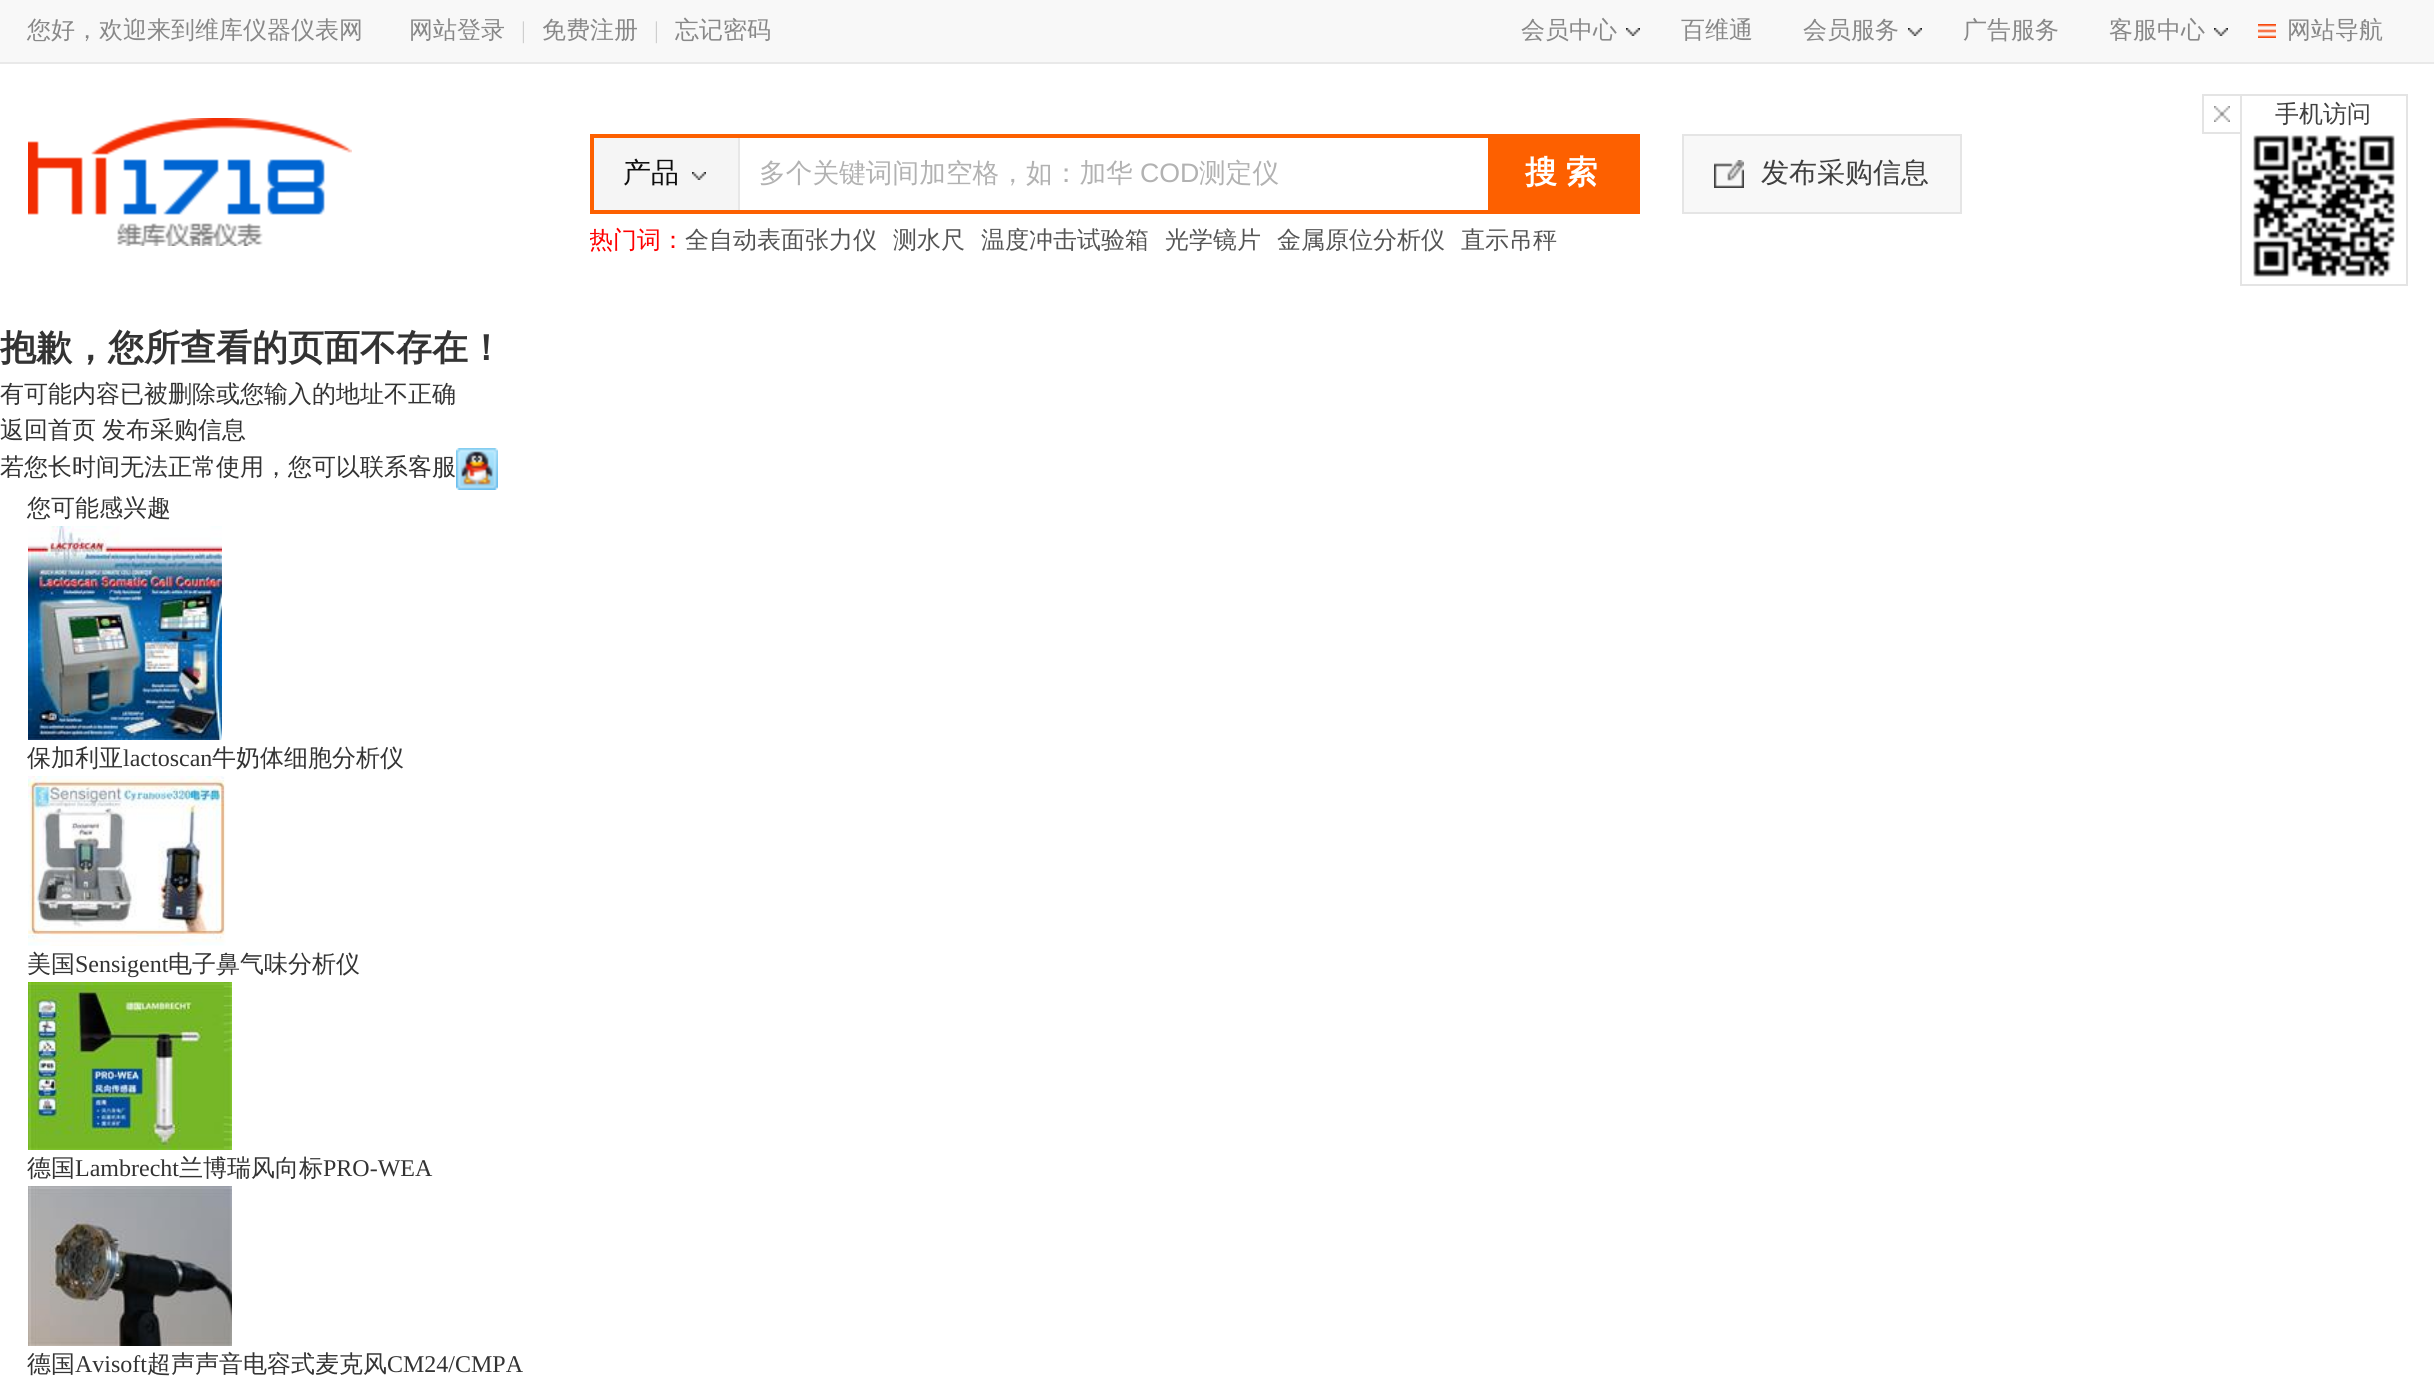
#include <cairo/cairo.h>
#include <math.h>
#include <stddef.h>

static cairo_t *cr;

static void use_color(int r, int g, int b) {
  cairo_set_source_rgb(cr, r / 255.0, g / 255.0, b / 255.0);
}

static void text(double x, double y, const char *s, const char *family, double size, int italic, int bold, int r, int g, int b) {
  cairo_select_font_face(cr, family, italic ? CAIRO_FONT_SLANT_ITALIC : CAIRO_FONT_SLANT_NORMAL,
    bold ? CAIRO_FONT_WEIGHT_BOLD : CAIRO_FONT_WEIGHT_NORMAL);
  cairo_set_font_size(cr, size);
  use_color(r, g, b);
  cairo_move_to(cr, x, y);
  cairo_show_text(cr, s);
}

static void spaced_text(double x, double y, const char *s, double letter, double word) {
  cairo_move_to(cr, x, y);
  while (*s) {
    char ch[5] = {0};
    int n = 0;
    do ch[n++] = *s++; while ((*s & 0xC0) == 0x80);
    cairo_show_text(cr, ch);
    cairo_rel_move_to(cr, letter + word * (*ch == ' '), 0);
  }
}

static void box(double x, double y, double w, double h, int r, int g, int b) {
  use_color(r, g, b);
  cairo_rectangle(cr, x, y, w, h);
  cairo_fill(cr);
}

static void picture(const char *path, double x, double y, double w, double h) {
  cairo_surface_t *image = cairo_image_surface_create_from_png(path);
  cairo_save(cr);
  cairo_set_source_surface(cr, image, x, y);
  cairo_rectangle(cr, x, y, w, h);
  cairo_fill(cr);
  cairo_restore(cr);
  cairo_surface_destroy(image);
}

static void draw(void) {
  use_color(255, 255, 255);
  cairo_paint(cr);
  box(0, 0, 2434, 62, 248, 248, 248);
  box(0, 62, 2434, 2, 233, 233, 233);
  picture("img_01.png", 1626, 28, 14, 8);
  picture("img_01.png", 1908, 28, 14, 8);
  picture("img_01.png", 2214, 28, 14, 8);
  picture("img_02.png", 2258, 24, 18, 14);
  cairo_rectangle(cr, 2241, 95, 166, 190);
  use_color(228, 228, 228);
  cairo_stroke(cr);
  box(2202, 94, 38, 2, 228, 228, 228);
  box(2202, 132, 38, 2, 228, 228, 228);
  box(2202, 94, 2, 40, 228, 228, 228);
  picture("img_03.png", 2214, 106, 16, 16);
  picture("img_04.png", 2253, 135, 142, 142);
  picture("img_05.png", 28, 118, 324, 128);
  cairo_rectangle(cr, 592, 136, 1046, 76);
  use_color(253, 96, 0);
  cairo_set_line_width(cr, 4);
  cairo_stroke(cr);
  box(594, 138, 144, 72, 245, 245, 245);
  box(738, 138, 2, 72, 231, 231, 231);
  picture("img_06.png", 692, 172, 14, 8);
  box(1488, 138, 148, 72, 253, 96, 0);
  use_color(248, 248, 248);
  cairo_rectangle(cr, 1683, 135, 278, 78);
  cairo_fill_preserve(cr);
  use_color(229, 229, 229);
  cairo_set_line_width(cr, 2);
  cairo_stroke(cr);
  picture("img_07.png", 1714, 160, 30, 28);
  picture("img_08.png", 456, 448, 42, 42);
  picture("img_09.png", 28, 526, 194, 214);
  picture("img_10.png", 28, 776, 198, 170);
  picture("img_11.png", 28, 982, 204, 168);
  picture("img_12.png", 28, 1186, 204, 160);
  text(27, 38, "您好，欢迎来到维库仪器仪表网", "WenQuanYi Zen Hei Medium", 24, 0, 0, 136, 136, 136);
  text(409, 38, "网站登录", "WenQuanYi Zen Hei Medium", 24, 0, 0, 136, 136, 136);
  text(521, 38, "|", "Liberation Serif", 24, 0, 0, 207, 207, 207);
  text(542, 38, "免费注册", "WenQuanYi Zen Hei Medium", 24, 0, 0, 136, 136, 136);
  text(654, 38, "|", "Liberation Serif", 24, 0, 0, 207, 207, 207);
  text(675, 38, "忘记密码", "WenQuanYi Zen Hei Medium", 24, 0, 0, 136, 136, 136);
  text(1521, 38, "会员中心", "WenQuanYi Zen Hei Medium", 24, 0, 0, 136, 136, 136);
  text(1681, 38, "百维通", "WenQuanYi Zen Hei Medium", 24, 0, 0, 136, 136, 136);
  text(1803, 38, "会员服务", "WenQuanYi Zen Hei Medium", 24, 0, 0, 136, 136, 136);
  text(1963, 38, "广告服务", "WenQuanYi Zen Hei Medium", 24, 0, 0, 136, 136, 136);
  text(2109, 38, "客服中心", "WenQuanYi Zen Hei Medium", 24, 0, 0, 136, 136, 136);
  text(2287, 38, "网站导航", "WenQuanYi Zen Hei Medium", 24, 0, 0, 136, 136, 136);
  text(2275, 122, "手机访问", "WenQuanYi Zen Hei Medium", 24, 0, 0, 64, 64, 64);
  text(623, 182, "产品", "WenQuanYi Zen Hei Medium", 28, 0, 0, 14, 14, 14);
  text(759, 182, "多个关键词间加空格，如：加华", "WenQuanYi Zen Hei Medium", 26.7, 0, 0, 178, 178, 178);
  text(1140, 182, "COD", "Liberation Sans", 26.7, 0, 0, 178, 178, 178);
  text(1199, 182, "测定仪", "WenQuanYi Zen Hei Medium", 26.7, 0, 0, 178, 178, 178);
  cairo_select_font_face(cr, "WenQuanYi Zen Hei", CAIRO_FONT_SLANT_NORMAL, CAIRO_FONT_WEIGHT_BOLD);
  cairo_set_font_size(cr, 32);
  use_color(255, 255, 255);
  spaced_text(1525, 183, "搜 索", 0, -1);
  cairo_save(cr);
  cairo_rectangle(cr, 590, 214, 1370, 52);
  cairo_clip(cr);
  text(589, 248, "热门词：", "WenQuanYi Zen Hei Medium", 24, 0, 0, 255, 0, 0);
  cairo_restore(cr);
  text(685, 248, "全自动表面张力仪", "WenQuanYi Zen Hei Medium", 24, 0, 0, 84, 84, 84);
  text(893, 248, "测水尺", "WenQuanYi Zen Hei Medium", 24, 0, 0, 84, 84, 84);
  text(981, 248, "温度冲击试验箱", "WenQuanYi Zen Hei Medium", 24, 0, 0, 84, 84, 84);
  text(1165, 248, "光学镜片", "WenQuanYi Zen Hei Medium", 24, 0, 0, 84, 84, 84);
  text(1277, 248, "金属原位分析仪", "WenQuanYi Zen Hei Medium", 24, 0, 0, 84, 84, 84);
  text(1461, 248, "直示吊秤", "WenQuanYi Zen Hei Medium", 24, 0, 0, 84, 84, 84);
  text(1761, 182, "发布采购信息", "WenQuanYi Zen Hei Medium", 28, 0, 0, 64, 64, 64);
  text(0, 360, "抱歉，您所查看的页面不存在！", "WenQuanYi Zen Hei", 36, 0, 1, 51, 51, 51);
  text(0, 402, "有可能内容已被删除或您输入的地址不正确", "WenQuanYi Zen Hei Medium", 24, 0, 0, 51, 51, 51);
  text(0, 438, "返回首页", "WenQuanYi Zen Hei Medium", 24, 0, 0, 51, 51, 51);
  text(102, 438, "发布采购信息", "WenQuanYi Zen Hei Medium", 24, 0, 0, 51, 51, 51);
  text(0, 475, "若您长时间无法正常使用，您可以联系客服", "WenQuanYi Zen Hei Medium", 24, 0, 0, 51, 51, 51);
  text(27, 516, "您可能感兴趣", "WenQuanYi Zen Hei Medium", 24, 0, 0, 51, 51, 51);
  text(27, 766, "保加利亚", "WenQuanYi Zen Hei Medium", 24, 0, 0, 51, 51, 51);
  text(123, 766, "lactoscan", "Liberation Serif", 24, 0, 0, 51, 51, 51);
  text(212, 766, "牛奶体细胞分析仪", "WenQuanYi Zen Hei Medium", 24, 0, 0, 51, 51, 51);
  text(27, 972, "美国", "WenQuanYi Zen Hei Medium", 24, 0, 0, 51, 51, 51);
  text(75, 972, "Sensigent", "Liberation Serif", 24, 0, 0, 51, 51, 51);
  text(168, 972, "电子鼻气味分析仪", "WenQuanYi Zen Hei Medium", 24, 0, 0, 51, 51, 51);
  text(27, 1176, "德国", "WenQuanYi Zen Hei Medium", 24, 0, 0, 51, 51, 51);
  text(75, 1176, "Lambrecht", "Liberation Serif", 24, 0, 0, 51, 51, 51);
  text(179, 1176, "兰博瑞风向标", "WenQuanYi Zen Hei Medium", 24, 0, 0, 51, 51, 51);
  text(323, 1176, "PRO-WEA", "Liberation Serif", 24, 0, 0, 51, 51, 51);
  text(27, 1372, "德国", "WenQuanYi Zen Hei Medium", 24, 0, 0, 51, 51, 51);
  text(75, 1372, "Avisoft", "Liberation Serif", 24, 0, 0, 51, 51, 51);
  text(147, 1372, "超声声音电容式麦克风", "WenQuanYi Zen Hei Medium", 24, 0, 0, 51, 51, 51);
  text(387, 1372, "CM24/CMPA", "Liberation Serif", 24, 0, 0, 51, 51, 51);
}

int main(void) {
  cairo_surface_t *surface = cairo_image_surface_create(CAIRO_FORMAT_RGB24, 2434, 1392);
  cr = cairo_create(surface);
  cairo_font_options_t *options = cairo_font_options_create();
  cairo_font_options_set_hint_metrics(options, CAIRO_HINT_METRICS_OFF);
  cairo_font_options_set_hint_style(options, CAIRO_HINT_STYLE_NONE);
  cairo_set_font_options(cr, options);
  cairo_set_miter_limit(cr, 4);
  draw();
  cairo_surface_write_to_png(surface, "out.png");
  cairo_font_options_destroy(options);
  cairo_destroy(cr);
  cairo_surface_destroy(surface);
  return 0;
}
